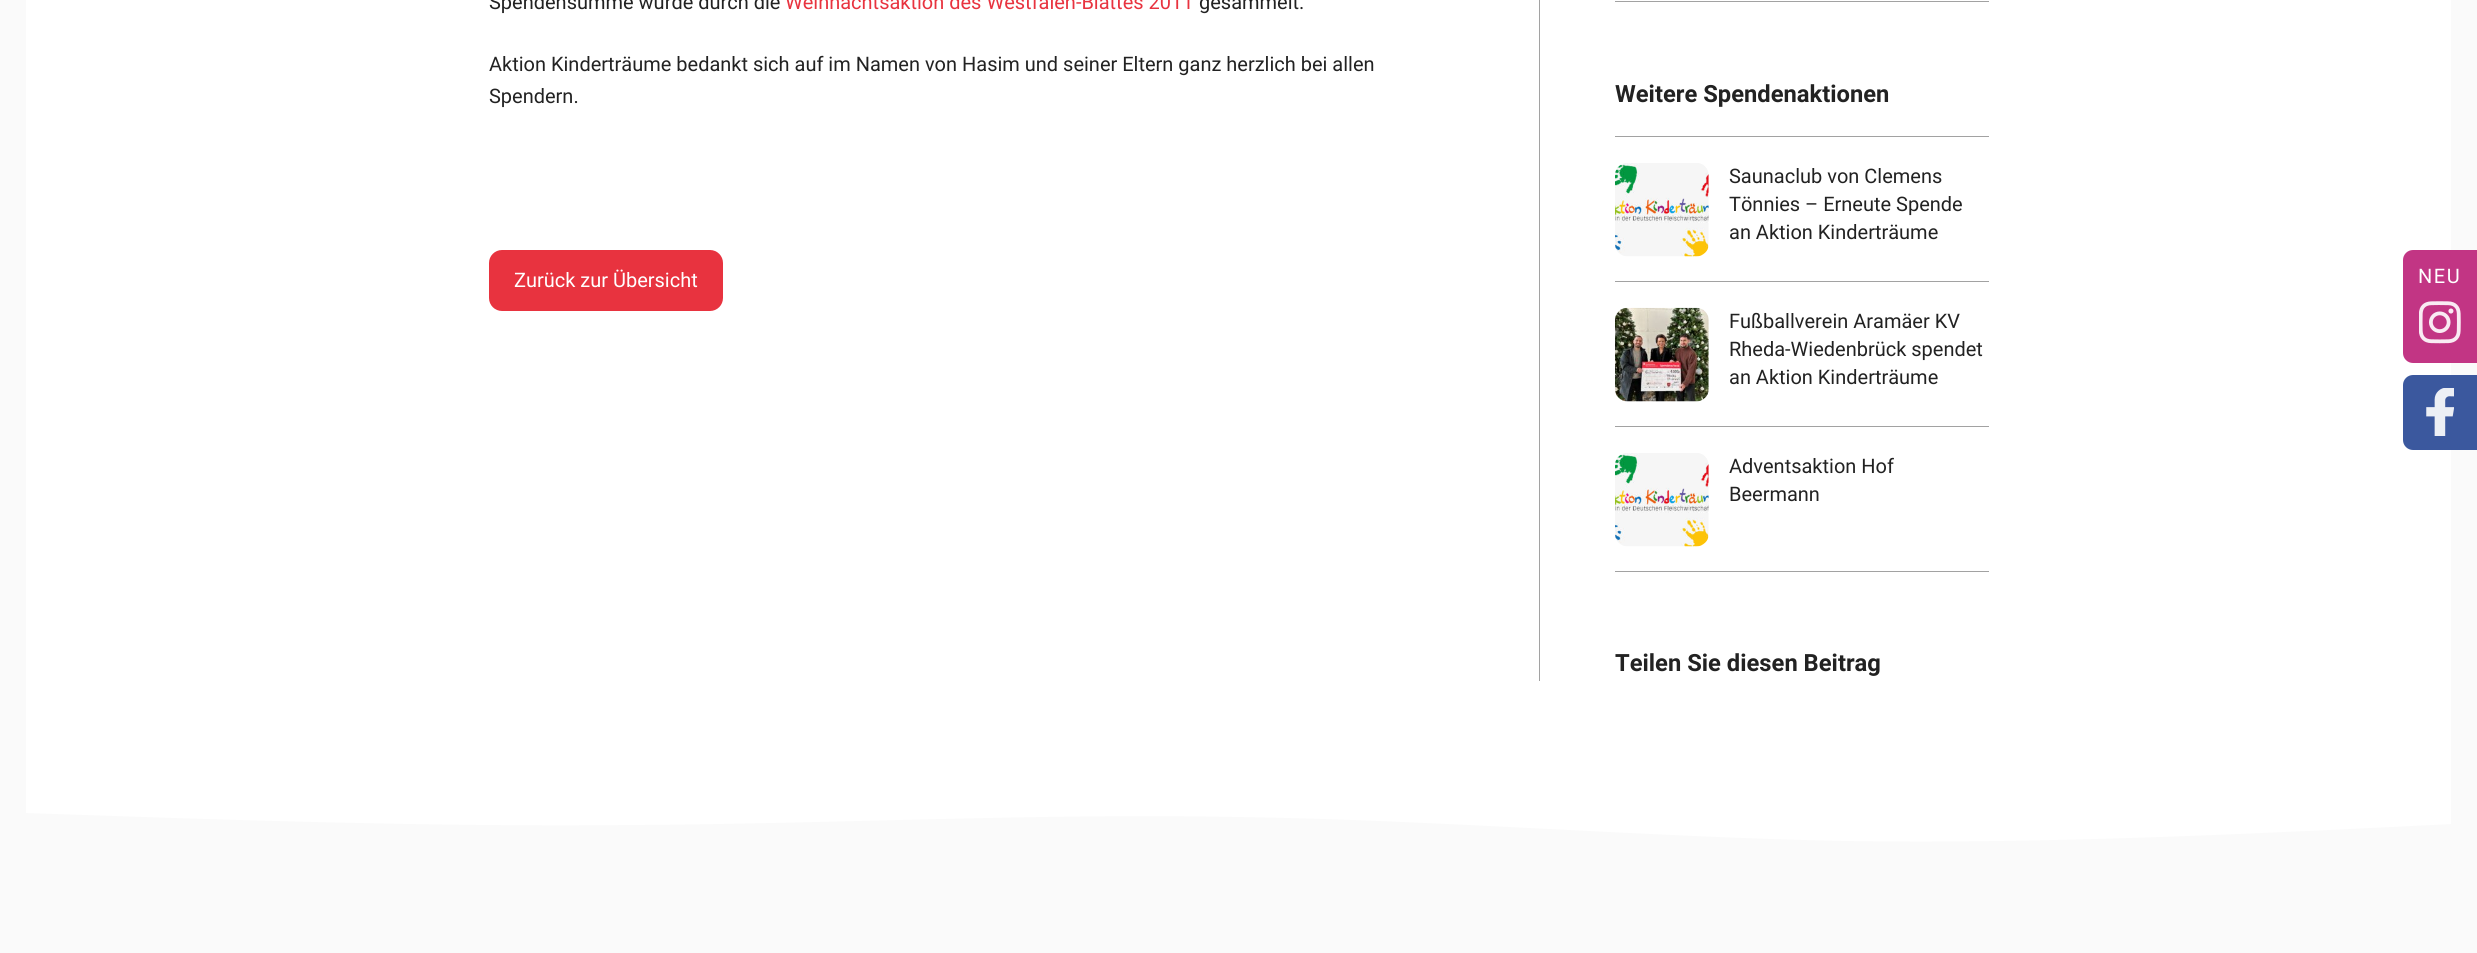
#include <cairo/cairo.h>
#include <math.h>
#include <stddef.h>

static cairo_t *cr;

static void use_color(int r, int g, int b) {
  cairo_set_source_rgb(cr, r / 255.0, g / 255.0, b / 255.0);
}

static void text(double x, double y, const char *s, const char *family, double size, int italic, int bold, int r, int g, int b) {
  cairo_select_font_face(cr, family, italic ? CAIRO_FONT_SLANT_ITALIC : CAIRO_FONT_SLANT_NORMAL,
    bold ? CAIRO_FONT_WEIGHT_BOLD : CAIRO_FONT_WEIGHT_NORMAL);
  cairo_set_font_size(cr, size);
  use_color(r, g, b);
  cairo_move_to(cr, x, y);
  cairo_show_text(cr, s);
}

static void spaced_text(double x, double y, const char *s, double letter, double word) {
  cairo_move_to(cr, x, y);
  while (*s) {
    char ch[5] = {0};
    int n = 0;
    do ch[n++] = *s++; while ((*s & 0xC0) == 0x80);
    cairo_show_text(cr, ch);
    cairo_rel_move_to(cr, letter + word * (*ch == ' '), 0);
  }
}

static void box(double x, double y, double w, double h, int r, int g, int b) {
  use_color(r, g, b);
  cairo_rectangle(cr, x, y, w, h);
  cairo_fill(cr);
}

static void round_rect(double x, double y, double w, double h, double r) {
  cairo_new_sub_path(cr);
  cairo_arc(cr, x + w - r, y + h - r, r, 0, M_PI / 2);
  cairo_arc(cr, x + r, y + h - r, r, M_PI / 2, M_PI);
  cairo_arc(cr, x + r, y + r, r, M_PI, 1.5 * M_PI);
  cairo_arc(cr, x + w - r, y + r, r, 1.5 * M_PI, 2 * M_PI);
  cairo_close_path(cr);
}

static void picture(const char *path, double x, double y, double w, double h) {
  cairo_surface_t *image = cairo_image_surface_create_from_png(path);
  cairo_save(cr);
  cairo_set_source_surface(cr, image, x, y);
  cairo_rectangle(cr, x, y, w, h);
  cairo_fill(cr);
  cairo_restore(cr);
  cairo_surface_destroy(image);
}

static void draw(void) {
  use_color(250, 250, 250);
  cairo_paint(cr);
  box(26, 0, 2425, 805, 255, 255, 255);
  use_color(232, 51, 63);
  round_rect(489, 250, 234, 61, 13);
  cairo_fill(cr);
  box(1539, 0, 1, 681, 162, 162, 162);
  box(1615, 1, 374, 1, 162, 162, 162);
  box(1615, 136, 374, 1, 162, 162, 162);
  box(1615, 281, 374, 1, 162, 162, 162);
  picture("img_01.png", 1615, 163, 94, 94);
  box(1615, 426, 374, 1, 162, 162, 162);
  picture("img_02.png", 1615, 307, 94, 95);
  box(1615, 571, 374, 1, 162, 162, 162);
  picture("img_03.png", 1615, 453, 94, 94);
  use_color(194, 53, 132);
  cairo_new_path(cr);
  cairo_move_to(cr, 2413, 250);
  cairo_line_to(cr, 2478, 250);
  cairo_line_to(cr, 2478, 363);
  cairo_line_to(cr, 2413, 363);
  cairo_curve_to(cr, 2407.5, 363, 2403, 358.5, 2403, 353);
  cairo_line_to(cr, 2403, 260);
  cairo_curve_to(cr, 2403, 254.5, 2407.5, 250, 2413, 250);
  cairo_close_path(cr);
  cairo_fill(cr);
  picture("img_04.png", 2419, 301, 42, 43);
  use_color(59, 88, 158);
  cairo_new_path(cr);
  cairo_move_to(cr, 2413, 375);
  cairo_line_to(cr, 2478, 375);
  cairo_line_to(cr, 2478, 450);
  cairo_line_to(cr, 2413, 450);
  cairo_curve_to(cr, 2407.5, 450, 2403, 445.5, 2403, 440);
  cairo_line_to(cr, 2403, 385);
  cairo_curve_to(cr, 2403, 379.5, 2407.5, 375, 2413, 375);
  cairo_close_path(cr);
  cairo_fill(cr);
  picture("img_05.png", 2426, 388, 28, 48);
  cairo_save(cr);
  cairo_rectangle(cr, 26, 805, 2425, 38);
  cairo_clip(cr);
  use_color(255, 255, 255);
  cairo_new_path(cr);
  cairo_move_to(cr, 2452, 804);
  cairo_line_to(cr, 25, 804);
  cairo_line_to(cr, 25, 813);
  cairo_curve_to(cr, 228, 820, 430, 827, 632, 825);
  cairo_curve_to(cr, 834, 824, 1036, 813, 1239, 817);
  cairo_curve_to(cr, 1441, 820, 1643, 837, 1845, 841);
  cairo_curve_to(cr, 2048, 844, 2250, 834, 2452, 824);
  cairo_close_path(cr);
  cairo_fill(cr);
  cairo_restore(cr);
  text(489, 9, "Spendensumme wurde durch die", "Roboto", 20, 0, 0, 34, 34, 34);
  text(785, 9, "Weihnachtsaktion des Westfalen-Blattes 2011", "Roboto", 20, 0, 0, 232, 51, 63);
  text(1199, 9, "gesammelt.", "Roboto", 20, 0, 0, 34, 34, 34);
  text(489, 71, "Aktion Kinderträume bedankt sich auf im Namen von Hasim und seiner Eltern ganz herzlich bei allen", "Roboto", 20, 0, 0, 34, 34, 34);
  text(489, 103, "Spendern.", "Roboto", 20, 0, 0, 34, 34, 34);
  text(514, 287, "Zurück zur Übersicht", "Roboto", 20, 0, 0, 255, 255, 255);
  text(1615, 102, "Weitere Spendenaktionen", "Roboto", 23.75, 0, 1, 34, 34, 34);
  text(1729, 183, "Saunaclub von Clemens", "Roboto", 20, 0, 0, 34, 34, 34);
  text(1729, 211, "Tönnies – Erneute Spende", "Roboto", 20, 0, 0, 34, 34, 34);
  text(1729, 239, "an Aktion Kinderträume", "Roboto", 20, 0, 0, 34, 34, 34);
  text(1729, 328, "Fußballverein Aramäer KV", "Roboto", 20, 0, 0, 34, 34, 34);
  text(1729, 356, "Rheda-Wiedenbrück spendet", "Roboto", 20, 0, 0, 34, 34, 34);
  text(1729, 384, "an Aktion Kinderträume", "Roboto", 20, 0, 0, 34, 34, 34);
  text(1729, 473, "Adventsaktion Hof", "Roboto", 20, 0, 0, 34, 34, 34);
  text(1729, 501, "Beermann", "Roboto", 20, 0, 0, 34, 34, 34);
  text(1615, 671, "Teilen Sie diesen Beitrag", "Roboto", 23.75, 0, 1, 34, 34, 34);
  cairo_select_font_face(cr, "Roboto", CAIRO_FONT_SLANT_NORMAL, CAIRO_FONT_WEIGHT_NORMAL);
  cairo_set_font_size(cr, 20);
  use_color(255, 255, 255);
  spaced_text(2418, 283, "NEU", 1.5, 0);
}

int main(void) {
  cairo_surface_t *surface = cairo_image_surface_create(CAIRO_FORMAT_RGB24, 2477, 953);
  cr = cairo_create(surface);
  cairo_font_options_t *options = cairo_font_options_create();
  cairo_font_options_set_hint_metrics(options, CAIRO_HINT_METRICS_OFF);
  cairo_font_options_set_hint_style(options, CAIRO_HINT_STYLE_NONE);
  cairo_set_font_options(cr, options);
  cairo_set_miter_limit(cr, 4);
  draw();
  cairo_surface_write_to_png(surface, "out.png");
  cairo_font_options_destroy(options);
  cairo_destroy(cr);
  cairo_surface_destroy(surface);
  return 0;
}
